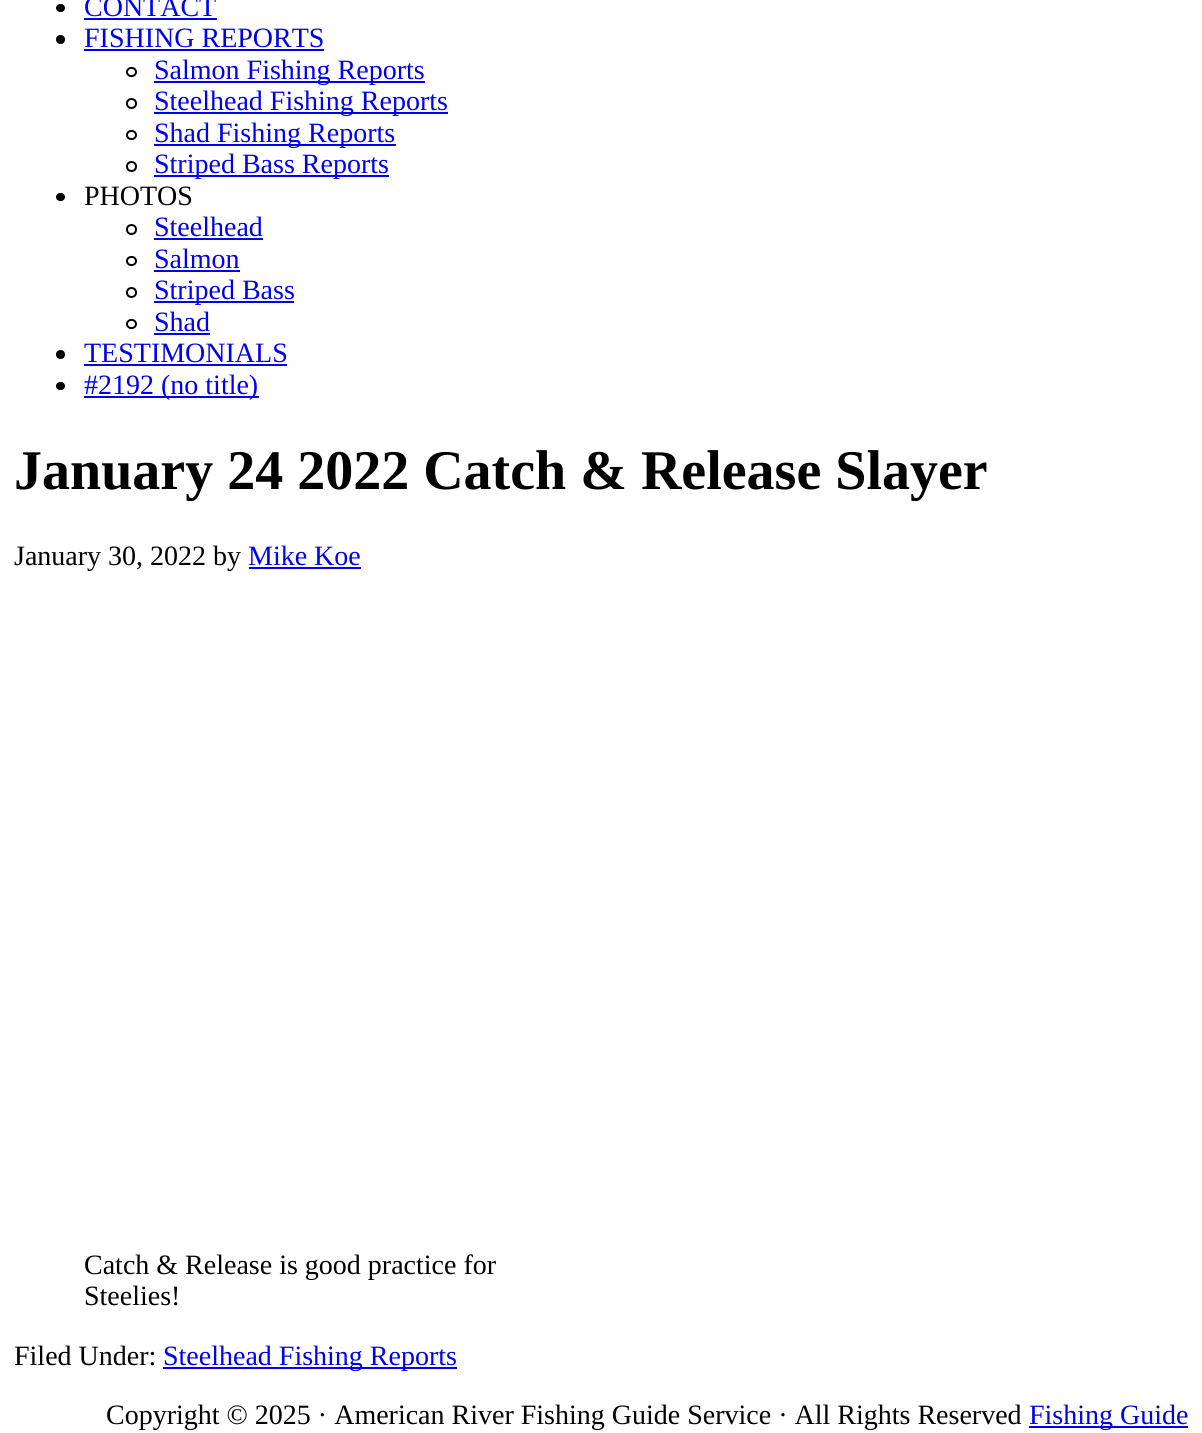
#include <cairo/cairo.h>
#include <math.h>
#include <stddef.h>

static cairo_t *cr;

static void use_color(int r, int g, int b) {
  cairo_set_source_rgb(cr, r / 255.0, g / 255.0, b / 255.0);
}

static void text(double x, double y, const char *s, const char *family, double size, int italic, int bold, int r, int g, int b) {
  cairo_select_font_face(cr, family, italic ? CAIRO_FONT_SLANT_ITALIC : CAIRO_FONT_SLANT_NORMAL,
    bold ? CAIRO_FONT_WEIGHT_BOLD : CAIRO_FONT_WEIGHT_NORMAL);
  cairo_set_font_size(cr, size);
  use_color(r, g, b);
  cairo_move_to(cr, x, y);
  cairo_show_text(cr, s);
}

static void box(double x, double y, double w, double h, int r, int g, int b) {
  use_color(r, g, b);
  cairo_rectangle(cr, x, y, w, h);
  cairo_fill(cr);
}

static void round_rect(double x, double y, double w, double h, double r) {
  cairo_new_sub_path(cr);
  cairo_arc(cr, x + w - r, y + h - r, r, 0, M_PI / 2);
  cairo_arc(cr, x + r, y + h - r, r, M_PI / 2, M_PI);
  cairo_arc(cr, x + r, y + r, r, M_PI, 1.5 * M_PI);
  cairo_arc(cr, x + w - r, y + r, r, 1.5 * M_PI, 2 * M_PI);
  cairo_close_path(cr);
}

static void draw(void) {
  use_color(255, 255, 255);
  cairo_paint(cr);
  use_color(0, 0, 0);
  round_rect(56, 4, 9, 8, 4);
  cairo_fill(cr);
  box(84, 18, 133, 2, 0, 0, 238);
  use_color(0, 0, 0);
  cairo_arc(cr, 60.5, 39.5, 4.5, 0, 2 * M_PI);
  cairo_fill(cr);
  box(84, 49, 240, 2, 0, 0, 238);
  round_rect(127, 68, 9, 8, 4);
  use_color(0, 0, 0);
  cairo_stroke(cr);
  box(154, 81, 271, 2, 0, 0, 238);
  cairo_arc(cr, 131.5, 103.5, 4.5, 0, 2 * M_PI);
  use_color(0, 0, 0);
  cairo_stroke(cr);
  box(154, 112, 294, 2, 0, 0, 238);
  round_rect(127, 131, 9, 8, 4);
  use_color(0, 0, 0);
  cairo_stroke(cr);
  box(154, 144, 242, 2, 0, 0, 238);
  cairo_arc(cr, 131.5, 166.5, 4.5, 0, 2 * M_PI);
  use_color(0, 0, 0);
  cairo_stroke(cr);
  box(154, 175, 235, 2, 0, 0, 238);
  use_color(0, 0, 0);
  round_rect(56, 193, 9, 8, 4);
  cairo_fill(cr);
  cairo_arc(cr, 131.5, 229.5, 4.5, 0, 2 * M_PI);
  cairo_stroke(cr);
  box(154, 238, 109, 2, 0, 0, 238);
  round_rect(127, 257, 9, 8, 4);
  use_color(0, 0, 0);
  cairo_stroke(cr);
  box(154, 270, 86, 2, 0, 0, 238);
  cairo_arc(cr, 131.5, 292.5, 4.5, 0, 2 * M_PI);
  use_color(0, 0, 0);
  cairo_stroke(cr);
  box(154, 301, 140, 2, 0, 0, 238);
  round_rect(127, 320, 9, 8, 4);
  use_color(0, 0, 0);
  cairo_stroke(cr);
  box(154, 333, 56, 2, 0, 0, 238);
  use_color(0, 0, 0);
  cairo_arc(cr, 60.5, 354.5, 4.5, 0, 2 * M_PI);
  cairo_fill(cr);
  box(84, 364, 203, 2, 0, 0, 238);
  use_color(0, 0, 0);
  round_rect(56, 382, 9, 8, 4);
  cairo_fill(cr);
  box(84, 396, 175, 2, 0, 0, 238);
  box(249, 567, 112, 2, 0, 0, 238);
  box(163, 1367, 294, 2, 0, 0, 238);
  box(1029, 1426, 159, 2, 0, 0, 238);
  text(84, 16, "CONTACT", "Liberation Serif", 28, 0, 0, 0, 0, 238);
  text(84, 47, "FISHING REPORTS", "Liberation Serif", 28, 0, 0, 0, 0, 238);
  text(154, 79, "Salmon Fishing Reports", "Liberation Serif", 28, 0, 0, 0, 0, 238);
  text(154, 110, "Steelhead Fishing Reports", "Liberation Serif", 28, 0, 0, 0, 0, 238);
  text(154, 142, "Shad Fishing Reports", "Liberation Serif", 28, 0, 0, 0, 0, 238);
  text(154, 173, "Striped Bass Reports", "Liberation Serif", 28, 0, 0, 0, 0, 238);
  text(84, 205, "PHOTOS", "Liberation Serif", 28, 0, 0, 0, 0, 0);
  text(154, 236, "Steelhead", "Liberation Serif", 28, 0, 0, 0, 0, 238);
  text(154, 268, "Salmon", "Liberation Serif", 28, 0, 0, 0, 0, 238);
  text(154, 299, "Striped Bass", "Liberation Serif", 28, 0, 0, 0, 0, 238);
  text(154, 331, "Shad", "Liberation Serif", 28, 0, 0, 0, 0, 238);
  text(84, 362, "TESTIMONIALS", "Liberation Serif", 28, 0, 0, 0, 0, 238);
  text(84, 394, "#2192 (no title)", "Liberation Serif", 28, 0, 0, 0, 0, 238);
  text(14, 489, "January 24 2022 Catch & Release Slayer", "Liberation Serif", 56, 0, 1, 0, 0, 0);
  text(14, 565, "January 30, 2022 by", "Liberation Serif", 28, 0, 0, 0, 0, 0);
  text(248, 565, "Mike Koe", "Liberation Serif", 28, 0, 0, 0, 0, 238);
  text(84, 1274, "Catch & Release is good practice for", "Liberation Serif", 28, 0, 0, 0, 0, 0);
  text(84, 1305, "Steelies!", "Liberation Serif", 28, 0, 0, 0, 0, 0);
  text(14, 1365, "Filed Under:", "Liberation Serif", 28, 0, 0, 0, 0, 0);
  text(163, 1365, "Steelhead Fishing Reports", "Liberation Serif", 28, 0, 0, 0, 0, 238);
  text(106, 1424, "Copyright © 2025 · American River Fishing Guide Service · All Rights Reserved", "Liberation Serif", 28, 0, 0, 0, 0, 0);
  text(1029, 1424, "Fishing Guide", "Liberation Serif", 28, 0, 0, 0, 0, 238);
}

int main(void) {
  cairo_surface_t *surface = cairo_image_surface_create(CAIRO_FORMAT_RGB24, 1202, 1433);
  cr = cairo_create(surface);
  cairo_font_options_t *options = cairo_font_options_create();
  cairo_font_options_set_hint_metrics(options, CAIRO_HINT_METRICS_OFF);
  cairo_font_options_set_hint_style(options, CAIRO_HINT_STYLE_NONE);
  cairo_set_font_options(cr, options);
  cairo_set_miter_limit(cr, 4);
  draw();
  cairo_surface_write_to_png(surface, "out.png");
  cairo_font_options_destroy(options);
  cairo_destroy(cr);
  cairo_surface_destroy(surface);
  return 0;
}
